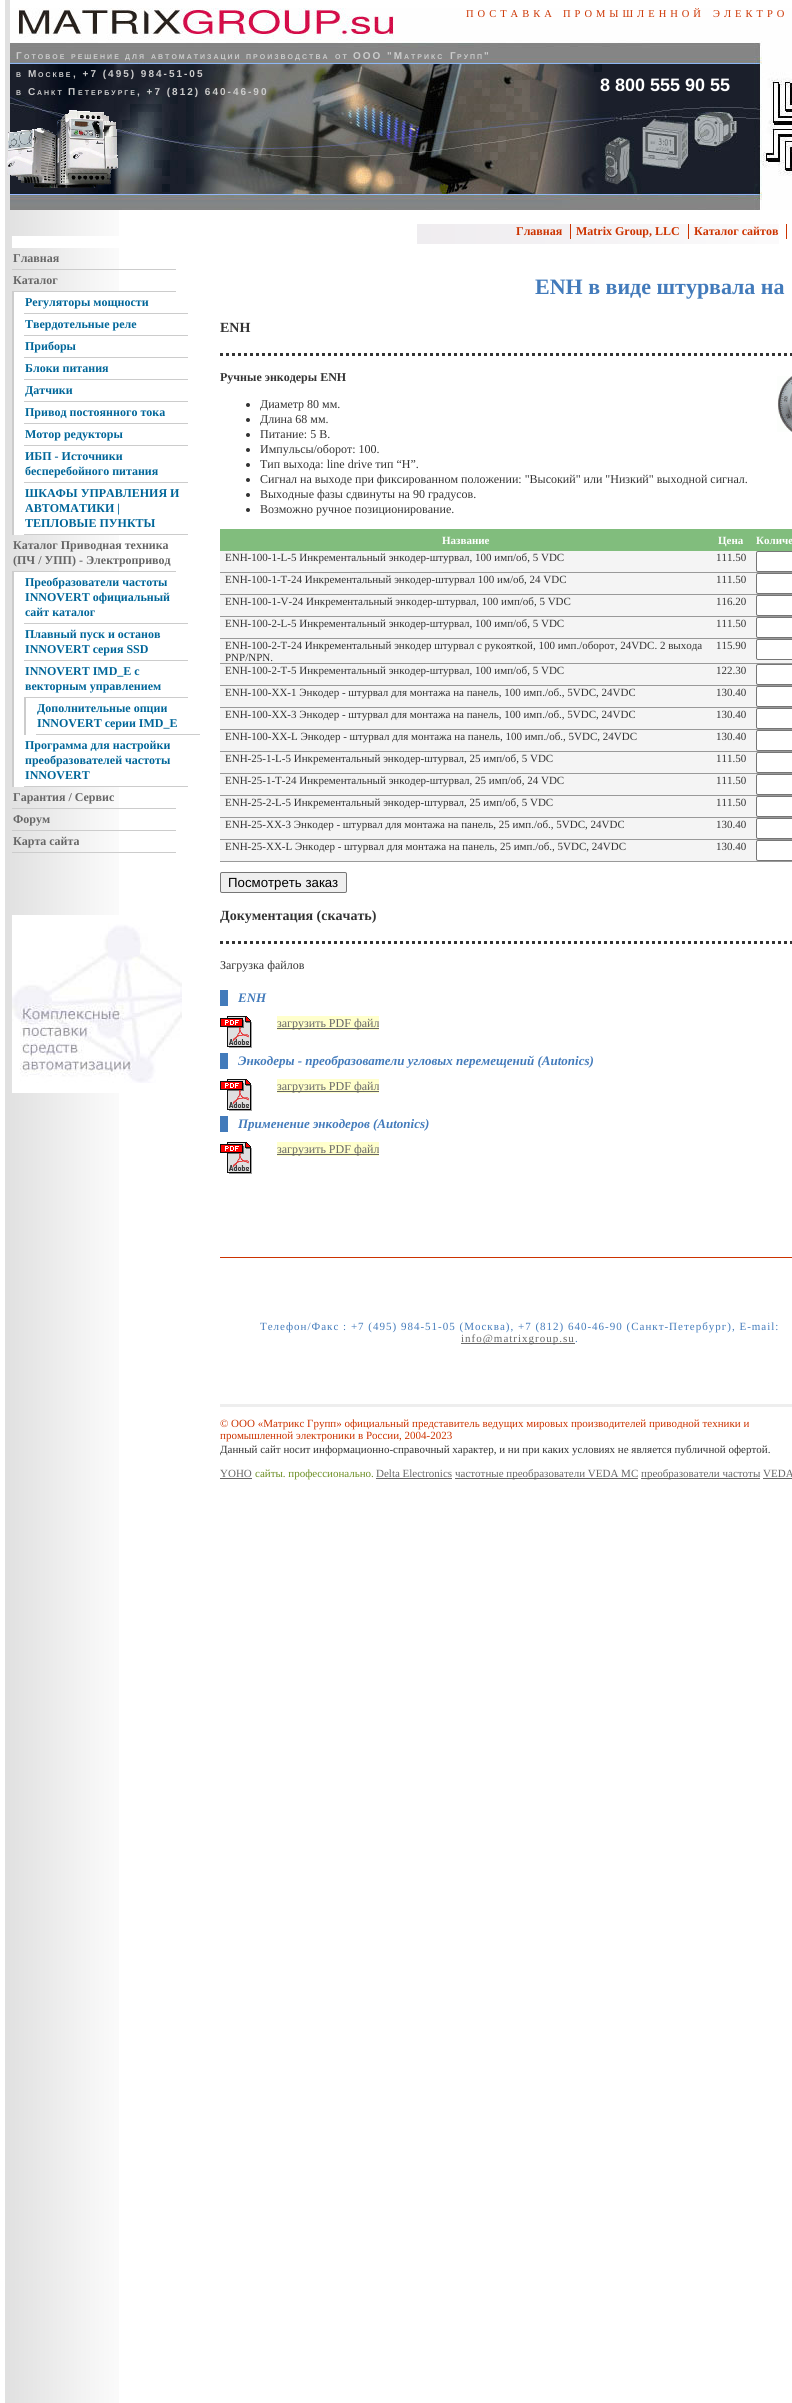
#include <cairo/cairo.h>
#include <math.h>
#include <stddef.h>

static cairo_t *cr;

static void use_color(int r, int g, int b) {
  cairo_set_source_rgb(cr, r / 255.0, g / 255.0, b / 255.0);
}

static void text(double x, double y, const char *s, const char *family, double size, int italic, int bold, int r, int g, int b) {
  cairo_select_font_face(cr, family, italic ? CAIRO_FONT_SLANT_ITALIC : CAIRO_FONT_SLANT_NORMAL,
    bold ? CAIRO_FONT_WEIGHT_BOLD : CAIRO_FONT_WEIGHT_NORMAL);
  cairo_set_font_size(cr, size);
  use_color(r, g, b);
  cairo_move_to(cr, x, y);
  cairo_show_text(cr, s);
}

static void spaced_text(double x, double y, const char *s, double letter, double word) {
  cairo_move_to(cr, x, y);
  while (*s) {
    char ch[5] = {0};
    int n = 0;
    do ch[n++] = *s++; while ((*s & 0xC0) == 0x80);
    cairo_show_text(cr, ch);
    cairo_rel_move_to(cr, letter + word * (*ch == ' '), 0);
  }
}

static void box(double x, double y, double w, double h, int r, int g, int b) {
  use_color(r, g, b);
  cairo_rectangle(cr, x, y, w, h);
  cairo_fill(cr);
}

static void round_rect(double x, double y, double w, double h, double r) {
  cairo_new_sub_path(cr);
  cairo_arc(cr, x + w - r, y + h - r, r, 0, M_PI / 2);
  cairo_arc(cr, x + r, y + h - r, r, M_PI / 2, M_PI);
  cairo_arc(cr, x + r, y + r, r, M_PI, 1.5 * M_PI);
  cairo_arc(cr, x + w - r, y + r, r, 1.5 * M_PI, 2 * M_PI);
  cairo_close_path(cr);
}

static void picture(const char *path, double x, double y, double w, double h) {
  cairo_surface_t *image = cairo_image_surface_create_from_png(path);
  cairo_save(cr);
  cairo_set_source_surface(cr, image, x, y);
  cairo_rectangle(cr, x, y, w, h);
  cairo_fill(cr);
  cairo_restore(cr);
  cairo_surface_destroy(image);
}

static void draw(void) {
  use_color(255, 255, 255);
  cairo_paint(cr);
  picture("img_01.png", 5, 0, 114, 2403);
  box(10, 0, 109, 8, 255, 255, 255);
  picture("img_02.png", 10, 8, 782, 202);
  picture("img_03.png", 7, 110, 111, 78);
  picture("img_04.png", 417, 224, 362, 20);
  box(570, 224, 1, 15, 204, 51, 0);
  box(688, 224, 1, 15, 204, 51, 0);
  box(786, 224, 1, 15, 204, 51, 0);
  picture("img_05.png", 12, 915, 170, 178);
  box(12, 236, 107, 12, 255, 255, 255);
  box(12, 269, 164, 1, 204, 204, 204);
  box(12, 291, 164, 1, 204, 204, 204);
  box(14, 292, 105, 243, 255, 255, 255);
  box(12, 292, 2, 243, 204, 204, 204);
  box(24, 313, 164, 1, 204, 204, 204);
  box(24, 335, 164, 1, 204, 204, 204);
  box(24, 357, 164, 1, 204, 204, 204);
  box(24, 379, 164, 1, 204, 204, 204);
  box(24, 401, 164, 1, 204, 204, 204);
  box(24, 423, 164, 1, 204, 204, 204);
  box(24, 445, 164, 1, 204, 204, 204);
  box(24, 482, 164, 1, 204, 204, 204);
  box(24, 534, 164, 1, 204, 204, 204);
  box(12, 571, 164, 1, 204, 204, 204);
  box(14, 572, 105, 215, 255, 255, 255);
  box(12, 572, 2, 215, 204, 204, 204);
  box(24, 623, 164, 1, 204, 204, 204);
  box(24, 660, 164, 1, 204, 204, 204);
  box(24, 697, 164, 1, 204, 204, 204);
  box(24, 698, 2, 37, 204, 204, 204);
  box(36, 734, 164, 1, 204, 204, 204);
  box(24, 786, 164, 1, 204, 204, 204);
  box(12, 808, 164, 1, 204, 204, 204);
  box(12, 830, 164, 1, 204, 204, 204);
  box(12, 852, 164, 1, 204, 204, 204);
  cairo_new_path(cr);
  cairo_move_to(cr, 220, 354.5);
  cairo_line_to(cr, 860, 354.5);
  use_color(51, 51, 51);
  cairo_set_line_width(cr, 3);
  cairo_set_dash(cr, (double[]){3, 3}, 2, 0);
  cairo_stroke(cr);
  picture("img_06.png", 777, 376, 15, 56);
  cairo_arc(cr, 248, 405, 2, 0, 2 * M_PI);
  cairo_fill(cr);
  cairo_arc(cr, 248, 420, 2, 0, 2 * M_PI);
  cairo_fill(cr);
  cairo_arc(cr, 248, 435, 2, 0, 2 * M_PI);
  cairo_fill(cr);
  cairo_arc(cr, 248, 450, 2, 0, 2 * M_PI);
  cairo_fill(cr);
  cairo_arc(cr, 248, 465, 2, 0, 2 * M_PI);
  cairo_fill(cr);
  cairo_arc(cr, 248, 480, 2, 0, 2 * M_PI);
  cairo_fill(cr);
  cairo_arc(cr, 248, 495, 2, 0, 2 * M_PI);
  cairo_fill(cr);
  cairo_arc(cr, 248, 510, 2, 0, 2 * M_PI);
  cairo_fill(cr);
  box(220, 529, 572, 22, 129, 189, 125);
  box(220, 551, 538, 21, 244, 244, 244);
  box(220, 572, 572, 1, 153, 153, 153);
  use_color(255, 255, 255);
  round_rect(756.5, 551.5, 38, 20, 1.5);
  cairo_fill_preserve(cr);
  use_color(118, 118, 118);
  cairo_set_line_width(cr, 1);
  cairo_set_dash(cr, NULL, 0, 0);
  cairo_stroke(cr);
  box(220, 573, 538, 21, 244, 244, 244);
  box(220, 594, 572, 1, 153, 153, 153);
  use_color(255, 255, 255);
  round_rect(756.5, 573.5, 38, 20, 1.5);
  cairo_fill_preserve(cr);
  use_color(118, 118, 118);
  cairo_stroke(cr);
  box(220, 595, 538, 21, 244, 244, 244);
  box(220, 616, 572, 1, 153, 153, 153);
  use_color(255, 255, 255);
  round_rect(756.5, 595.5, 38, 20, 1.5);
  cairo_fill_preserve(cr);
  use_color(118, 118, 118);
  cairo_stroke(cr);
  box(220, 617, 538, 21, 244, 244, 244);
  box(220, 638, 572, 1, 153, 153, 153);
  use_color(255, 255, 255);
  round_rect(756.5, 617.5, 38, 20, 1.5);
  cairo_fill_preserve(cr);
  use_color(118, 118, 118);
  cairo_stroke(cr);
  box(220, 639, 572, 24, 244, 244, 244);
  box(220, 663, 572, 1, 153, 153, 153);
  use_color(255, 255, 255);
  round_rect(756.5, 639.5, 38, 20, 1.5);
  cairo_fill_preserve(cr);
  use_color(118, 118, 118);
  cairo_stroke(cr);
  box(220, 664, 538, 21, 244, 244, 244);
  box(220, 685, 572, 1, 153, 153, 153);
  use_color(255, 255, 255);
  round_rect(756.5, 664.5, 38, 20, 1.5);
  cairo_fill_preserve(cr);
  use_color(118, 118, 118);
  cairo_stroke(cr);
  box(220, 686, 538, 21, 244, 244, 244);
  box(220, 707, 572, 1, 153, 153, 153);
  use_color(255, 255, 255);
  round_rect(756.5, 686.5, 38, 20, 1.5);
  cairo_fill_preserve(cr);
  use_color(118, 118, 118);
  cairo_stroke(cr);
  box(220, 708, 538, 21, 244, 244, 244);
  box(220, 729, 572, 1, 153, 153, 153);
  use_color(255, 255, 255);
  round_rect(756.5, 708.5, 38, 20, 1.5);
  cairo_fill_preserve(cr);
  use_color(118, 118, 118);
  cairo_stroke(cr);
  box(220, 730, 538, 21, 244, 244, 244);
  box(220, 751, 572, 1, 153, 153, 153);
  use_color(255, 255, 255);
  round_rect(756.5, 730.5, 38, 20, 1.5);
  cairo_fill_preserve(cr);
  use_color(118, 118, 118);
  cairo_stroke(cr);
  box(220, 752, 538, 21, 244, 244, 244);
  box(220, 773, 572, 1, 153, 153, 153);
  use_color(255, 255, 255);
  round_rect(756.5, 752.5, 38, 20, 1.5);
  cairo_fill_preserve(cr);
  use_color(118, 118, 118);
  cairo_stroke(cr);
  box(220, 774, 538, 21, 244, 244, 244);
  box(220, 795, 572, 1, 153, 153, 153);
  use_color(255, 255, 255);
  round_rect(756.5, 774.5, 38, 20, 1.5);
  cairo_fill_preserve(cr);
  use_color(118, 118, 118);
  cairo_stroke(cr);
  box(220, 796, 538, 21, 244, 244, 244);
  box(220, 817, 572, 1, 153, 153, 153);
  use_color(255, 255, 255);
  round_rect(756.5, 796.5, 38, 20, 1.5);
  cairo_fill_preserve(cr);
  use_color(118, 118, 118);
  cairo_stroke(cr);
  box(220, 818, 538, 21, 244, 244, 244);
  box(220, 839, 572, 1, 153, 153, 153);
  use_color(255, 255, 255);
  round_rect(756.5, 818.5, 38, 20, 1.5);
  cairo_fill_preserve(cr);
  use_color(118, 118, 118);
  cairo_stroke(cr);
  box(220, 840, 538, 21, 244, 244, 244);
  box(220, 861, 572, 1, 153, 153, 153);
  use_color(255, 255, 255);
  round_rect(756.5, 840.5, 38, 20, 1.5);
  cairo_fill_preserve(cr);
  use_color(118, 118, 118);
  cairo_stroke(cr);
  use_color(239, 239, 239);
  round_rect(220.5, 872.5, 126, 20, 1.5);
  cairo_fill_preserve(cr);
  use_color(118, 118, 118);
  cairo_stroke(cr);
  cairo_new_path(cr);
  cairo_move_to(cr, 220, 942.5);
  cairo_line_to(cr, 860, 942.5);
  use_color(51, 51, 51);
  cairo_set_line_width(cr, 3);
  cairo_set_dash(cr, (double[]){3, 3}, 2, 0);
  cairo_stroke(cr);
  box(220, 990, 8, 16, 67, 123, 187);
  picture("img_07.png", 220, 1016, 32, 32);
  box(277, 1016, 102, 14, 255, 255, 204);
  box(277, 1028, 102, 1, 102, 102, 102);
  box(220, 1053, 8, 16, 67, 123, 187);
  picture("img_07.png", 220, 1079, 32, 32);
  box(277, 1079, 102, 14, 255, 255, 204);
  box(277, 1091, 102, 1, 102, 102, 102);
  box(220, 1116, 8, 16, 67, 123, 187);
  picture("img_07.png", 220, 1142, 32, 32);
  box(277, 1142, 102, 14, 255, 255, 204);
  box(277, 1154, 102, 1, 102, 102, 102);
  box(220, 1257, 572, 1, 204, 51, 0);
  box(461, 1343, 114, 1, 102, 102, 102);
  use_color(238, 238, 238);
  cairo_new_path(cr);
  cairo_move_to(cr, 220, 1404);
  cairo_line_to(cr, 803, 1404);
  cairo_line_to(cr, 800, 1407);
  cairo_line_to(cr, 220, 1407);
  cairo_close_path(cr);
  cairo_fill(cr);
  box(220, 1478, 32, 1, 102, 102, 102);
  box(376, 1478, 76, 1, 102, 102, 102);
  box(455, 1478, 183, 1, 102, 102, 102);
  box(641, 1478, 119, 1, 102, 102, 102);
  box(763, 1478, 29, 1, 102, 102, 102);
  cairo_select_font_face(cr, "Liberation Serif", CAIRO_FONT_SLANT_NORMAL, CAIRO_FONT_WEIGHT_NORMAL);
  cairo_set_font_size(cr, 10.5);
  use_color(204, 51, 0);
  spaced_text(466, 17, "ПОСТАВКА", 4, 0);
  spaced_text(563, 17, "ПРОМЫШЛЕННОЙ", 4, 0);
  spaced_text(713, 17, "ЭЛЕКТРО", 4, 0);
  cairo_select_font_face(cr, "Liberation Sans", CAIRO_FONT_SLANT_NORMAL, CAIRO_FONT_WEIGHT_BOLD);
  cairo_set_font_size(cr, 10);
  use_color(204, 204, 204);
  spaced_text(16, 59, "Г", 2, 0);
  spaced_text(353, 59, "ООО \"М", 2, 0);
  spaced_text(450, 59, "Г", 2, 0);
  spaced_text(484, 59, "\"", 2, 0);
  cairo_set_font_size(cr, 7);
  spaced_text(24, 59, "ОТОВОЕ", 2, 0);
  spaced_text(71, 59, "РЕШЕНИЕ", 2, 0);
  spaced_text(125, 59, "ДЛЯ", 2, 0);
  spaced_text(151, 59, "АВТОМАТИЗАЦИИ", 2, 0);
  spaced_text(246, 59, "ПРОИЗВОДСТВА", 2, 0);
  spaced_text(335, 59, "ОТ", 2, 0);
  spaced_text(404, 59, "АТРИКС", 2, 0);
  spaced_text(457, 59, "РУПП", 2, 0);
  spaced_text(16, 77, "В", 2, 0);
  cairo_set_font_size(cr, 10);
  spaced_text(28, 77, "М", 2, 0);
  cairo_set_font_size(cr, 7);
  spaced_text(38, 77, "ОСКВЕ", 2, 0);
  cairo_set_font_size(cr, 10);
  spaced_text(73, 77, ", +7 (495) 984-51-05", 2, 0);
  cairo_set_font_size(cr, 7);
  spaced_text(16, 95, "В", 2, 0);
  cairo_set_font_size(cr, 10);
  spaced_text(28, 95, "С", 2, 0);
  cairo_set_font_size(cr, 7);
  spaced_text(37, 95, "АНКТ", 2, 0);
  cairo_set_font_size(cr, 10);
  spaced_text(68, 95, "П", 2, 0);
  cairo_set_font_size(cr, 7);
  spaced_text(78, 95, "ЕТЕРБУРГЕ", 2, 0);
  cairo_set_font_size(cr, 10);
  spaced_text(137, 95, ", +7 (812) 640-46-90", 2, 0);
  text(600, 91, "8 800 555 90 55", "Liberation Sans", 18, 0, 1, 255, 255, 255);
  text(516, 235, "Главная", "Liberation Serif", 12, 0, 1, 204, 51, 0);
  text(576, 235, "Matrix Group, LLC", "Liberation Serif", 12, 0, 1, 204, 51, 0);
  text(694, 235, "Каталог сайтов", "Liberation Serif", 12, 0, 1, 204, 51, 0);
  text(13, 262, "Главная", "Liberation Serif", 12, 0, 1, 102, 102, 102);
  text(13, 284, "Каталог", "Liberation Serif", 12, 0, 1, 102, 102, 102);
  text(25, 306, "Регуляторы мощности", "Liberation Serif", 12, 0, 1, 0, 102, 153);
  text(25, 328, "Твердотельные реле", "Liberation Serif", 12, 0, 1, 0, 102, 153);
  text(25, 350, "Приборы", "Liberation Serif", 12, 0, 1, 0, 102, 153);
  text(25, 372, "Блоки питания", "Liberation Serif", 12, 0, 1, 0, 102, 153);
  text(25, 394, "Датчики", "Liberation Serif", 12, 0, 1, 0, 102, 153);
  text(25, 416, "Привод постоянного тока", "Liberation Serif", 12, 0, 1, 0, 102, 153);
  text(25, 438, "Мотор редукторы", "Liberation Serif", 12, 0, 1, 0, 102, 153);
  text(25, 460, "ИБП - Источники", "Liberation Serif", 12, 0, 1, 0, 102, 153);
  text(25, 475, "бесперебойного питания", "Liberation Serif", 12, 0, 1, 0, 102, 153);
  text(25, 497, "ШКАФЫ УПРАВЛЕНИЯ И", "Liberation Serif", 12, 0, 1, 0, 102, 153);
  text(25, 512, "АВТОМАТИКИ |", "Liberation Serif", 12, 0, 1, 0, 102, 153);
  text(25, 527, "ТЕПЛОВЫЕ ПУНКТЫ", "Liberation Serif", 12, 0, 1, 0, 102, 153);
  text(13, 549, "Каталог Приводная техника", "Liberation Serif", 12, 0, 1, 102, 102, 102);
  text(13, 564, "(ПЧ / УПП) - Электропривод", "Liberation Serif", 12, 0, 1, 102, 102, 102);
  text(25, 586, "Преобразователи частоты", "Liberation Serif", 12, 0, 1, 0, 102, 153);
  text(25, 601, "INNOVERT официальный", "Liberation Serif", 12, 0, 1, 0, 102, 153);
  text(25, 616, "сайт каталог", "Liberation Serif", 12, 0, 1, 0, 102, 153);
  text(25, 638, "Плавный пуск и останов", "Liberation Serif", 12, 0, 1, 0, 102, 153);
  text(25, 653, "INNOVERT серия SSD", "Liberation Serif", 12, 0, 1, 0, 102, 153);
  text(25, 675, "INNOVERT IMD_E с", "Liberation Serif", 12, 0, 1, 0, 102, 153);
  text(25, 690, "векторным управлением", "Liberation Serif", 12, 0, 1, 0, 102, 153);
  text(37, 712, "Дополнительные опции", "Liberation Serif", 12, 0, 1, 0, 102, 153);
  text(37, 727, "INNOVERT серии IMD_E", "Liberation Serif", 12, 0, 1, 0, 102, 153);
  text(25, 749, "Программа для настройки", "Liberation Serif", 12, 0, 1, 0, 102, 153);
  text(25, 764, "преобразователей частоты", "Liberation Serif", 12, 0, 1, 0, 102, 153);
  text(25, 779, "INNOVERT", "Liberation Serif", 12, 0, 1, 0, 102, 153);
  text(13, 801, "Гарантия / Сервис", "Liberation Serif", 12, 0, 1, 102, 102, 102);
  text(13, 823, "Форум", "Liberation Serif", 12, 0, 1, 102, 102, 102);
  text(13, 845, "Карта сайта", "Liberation Serif", 12, 0, 1, 102, 102, 102);
  text(535, 294, "ENH в виде штурвала на", "Liberation Serif", 22, 0, 1, 67, 123, 187);
  text(220, 332, "ENH", "Liberation Serif", 14, 0, 1, 51, 51, 51);
  text(220, 381, "Ручные энкодеры ENH", "Liberation Serif", 12, 0, 1, 51, 51, 51);
  text(260, 408, "Диаметр 80 мм.", "Liberation Serif", 12, 0, 0, 51, 51, 51);
  text(260, 423, "Длина 68 мм.", "Liberation Serif", 12, 0, 0, 51, 51, 51);
  text(260, 438, "Питание: 5 B.", "Liberation Serif", 12, 0, 0, 51, 51, 51);
  text(260, 453, "Импульсы/оборот: 100.", "Liberation Serif", 12, 0, 0, 51, 51, 51);
  text(260, 468, "Тип выхода: line drive тип “H”.", "Liberation Serif", 12, 0, 0, 51, 51, 51);
  text(260, 483, "Сигнал на выходе при фиксированном положении: \"Высокий\" или \"Низкий\" выходной сигнал.", "Liberation Serif", 12, 0, 0, 51, 51, 51);
  text(260, 498, "Выходные фазы сдвинуты на 90 градусов.", "Liberation Serif", 12, 0, 0, 51, 51, 51);
  text(260, 513, "Возможно ручное позиционирование.", "Liberation Serif", 12, 0, 0, 51, 51, 51);
  text(442, 544, "Название", "Liberation Serif", 11, 0, 1, 255, 255, 255);
  text(718, 544, "Цена", "Liberation Serif", 11, 0, 1, 255, 255, 255);
  text(756, 544, "Количе", "Liberation Serif", 11, 0, 1, 255, 255, 255);
  text(225, 561, "ENH-100-1-L-5 Инкрементальный энкодер-штурвал, 100 имп/об, 5 VDC", "Liberation Serif", 11, 0, 0, 51, 51, 51);
  text(716, 561, "111.50", "Liberation Serif", 11, 0, 0, 51, 51, 51);
  text(225, 583, "ENH-100-1-T-24 Инкрементальный энкодер-штурвал 100 им/об, 24 VDC", "Liberation Serif", 11, 0, 0, 51, 51, 51);
  text(716, 583, "111.50", "Liberation Serif", 11, 0, 0, 51, 51, 51);
  text(225, 605, "ENH-100-1-V-24 Инкрементальный энкодер-штурвал, 100 имп/об, 5 VDC", "Liberation Serif", 11, 0, 0, 51, 51, 51);
  text(716, 605, "116.20", "Liberation Serif", 11, 0, 0, 51, 51, 51);
  text(225, 627, "ENH-100-2-L-5 Инкрементальный энкодер-штурвал, 100 имп/об, 5 VDC", "Liberation Serif", 11, 0, 0, 51, 51, 51);
  text(716, 627, "111.50", "Liberation Serif", 11, 0, 0, 51, 51, 51);
  text(225, 649, "ENH-100-2-T-24 Инкрементальный энкодер штурвал с рукояткой, 100 имп./оборот, 24VDC. 2 выхода", "Liberation Serif", 11, 0, 0, 51, 51, 51);
  text(225, 661, "PNP/NPN.", "Liberation Serif", 11, 0, 0, 51, 51, 51);
  text(716, 649, "115.90", "Liberation Serif", 11, 0, 0, 51, 51, 51);
  text(225, 674, "ENH-100-2-T-5 Инкрементальный энкодер-штурвал, 100 имп/об, 5 VDC", "Liberation Serif", 11, 0, 0, 51, 51, 51);
  text(716, 674, "122.30", "Liberation Serif", 11, 0, 0, 51, 51, 51);
  text(225, 696, "ENH-100-XX-1 Энкодер - штурвал для монтажа на панель, 100 имп./об., 5VDC, 24VDC", "Liberation Serif", 11, 0, 0, 51, 51, 51);
  text(716, 696, "130.40", "Liberation Serif", 11, 0, 0, 51, 51, 51);
  text(225, 718, "ENH-100-XX-3 Энкодер - штурвал для монтажа на панель, 100 имп./об., 5VDC, 24VDC", "Liberation Serif", 11, 0, 0, 51, 51, 51);
  text(716, 718, "130.40", "Liberation Serif", 11, 0, 0, 51, 51, 51);
  text(225, 740, "ENH-100-XX-L Энкодер - штурвал для монтажа на панель, 100 имп./об., 5VDC, 24VDC", "Liberation Serif", 11, 0, 0, 51, 51, 51);
  text(716, 740, "130.40", "Liberation Serif", 11, 0, 0, 51, 51, 51);
  text(225, 762, "ENH-25-1-L-5 Инкрементальный энкодер-штурвал, 25 имп/об, 5 VDC", "Liberation Serif", 11, 0, 0, 51, 51, 51);
  text(716, 762, "111.50", "Liberation Serif", 11, 0, 0, 51, 51, 51);
  text(225, 784, "ENH-25-1-T-24 Инкрементальный энкодер-штурвал, 25 имп/об, 24 VDC", "Liberation Serif", 11, 0, 0, 51, 51, 51);
  text(716, 784, "111.50", "Liberation Serif", 11, 0, 0, 51, 51, 51);
  text(225, 806, "ENH-25-2-L-5 Инкрементальный энкодер-штурвал, 25 имп/об, 5 VDC", "Liberation Serif", 11, 0, 0, 51, 51, 51);
  text(716, 806, "111.50", "Liberation Serif", 11, 0, 0, 51, 51, 51);
  text(225, 828, "ENH-25-XX-3 Энкодер - штурвал для монтажа на панель, 25 имп./об., 5VDC, 24VDC", "Liberation Serif", 11, 0, 0, 51, 51, 51);
  text(716, 828, "130.40", "Liberation Serif", 11, 0, 0, 51, 51, 51);
  text(225, 850, "ENH-25-XX-L Энкодер - штурвал для монтажа на панель, 25 имп./об., 5VDC, 24VDC", "Liberation Serif", 11, 0, 0, 51, 51, 51);
  text(716, 850, "130.40", "Liberation Serif", 11, 0, 0, 51, 51, 51);
  text(228, 887, "Посмотреть заказ", "Liberation Sans", 13.25, 0, 0, 0, 0, 0);
  text(220, 920, "Документация (скачать)", "Liberation Serif", 14, 0, 1, 51, 51, 51);
  text(220, 969, "Загрузка файлов", "Liberation Serif", 12, 0, 0, 51, 51, 51);
  text(238, 1002, "ENH", "Liberation Serif", 13, 1, 1, 67, 123, 187);
  text(277, 1027, "загрузить PDF файл", "Liberation Serif", 12, 0, 0, 102, 102, 102);
  text(238, 1065, "Энкодеры - преобразователи угловых перемещений (Autonics)", "Liberation Serif", 13, 1, 1, 67, 123, 187);
  text(277, 1090, "загрузить PDF файл", "Liberation Serif", 12, 0, 0, 102, 102, 102);
  text(238, 1128, "Применение энкодеров (Autonics)", "Liberation Serif", 13, 1, 1, 67, 123, 187);
  text(277, 1153, "загрузить PDF файл", "Liberation Serif", 12, 0, 0, 102, 102, 102);
  cairo_set_font_size(cr, 11);
  use_color(67, 123, 187);
  spaced_text(260, 1330, "Телефон/Факс : +7 (495) 984-51-05 (Москва), +7 (812) 640-46-90 (Санкт-Петербург), E-mail:", 1, 0);
  use_color(102, 102, 102);
  spaced_text(461, 1342, "info@matrixgroup.su", 1, 0);
  use_color(67, 123, 187);
  spaced_text(575, 1342, ".", 1, 0);
  text(220, 1427, "© ООО «Матрикс Групп» официальный представитель ведущих мировых производителей приводной техники и", "Liberation Serif", 11, 0, 0, 204, 51, 0);
  text(220, 1439, "промышленной электроники в России, 2004-2023", "Liberation Serif", 11, 0, 0, 204, 51, 0);
  text(220, 1453, "Данный сайт носит информационно-справочный характер, и ни при каких условиях не является публичной офертой.", "Liberation Serif", 11, 0, 0, 51, 51, 51);
  text(220, 1477, "YOHO", "Liberation Serif", 11, 0, 0, 102, 102, 102);
  text(255, 1477, "сайты. профессионально.", "Liberation Serif", 11, 0, 0, 107, 142, 35);
  text(376, 1477, "Delta Electronics", "Liberation Serif", 11, 0, 0, 102, 102, 102);
  text(455, 1477, "частотные преобразователи VEDA MC", "Liberation Serif", 11, 0, 0, 102, 102, 102);
  text(641, 1477, "преобразователи частоты VEDA", "Liberation Serif", 11, 0, 0, 102, 102, 102);
}

int main(void) {
  cairo_surface_t *surface = cairo_image_surface_create(CAIRO_FORMAT_RGB24, 792, 2403);
  cr = cairo_create(surface);
  cairo_font_options_t *options = cairo_font_options_create();
  cairo_font_options_set_hint_metrics(options, CAIRO_HINT_METRICS_OFF);
  cairo_font_options_set_hint_style(options, CAIRO_HINT_STYLE_NONE);
  cairo_set_font_options(cr, options);
  cairo_set_miter_limit(cr, 4);
  draw();
  cairo_surface_write_to_png(surface, "out.png");
  cairo_font_options_destroy(options);
  cairo_destroy(cr);
  cairo_surface_destroy(surface);
  return 0;
}
